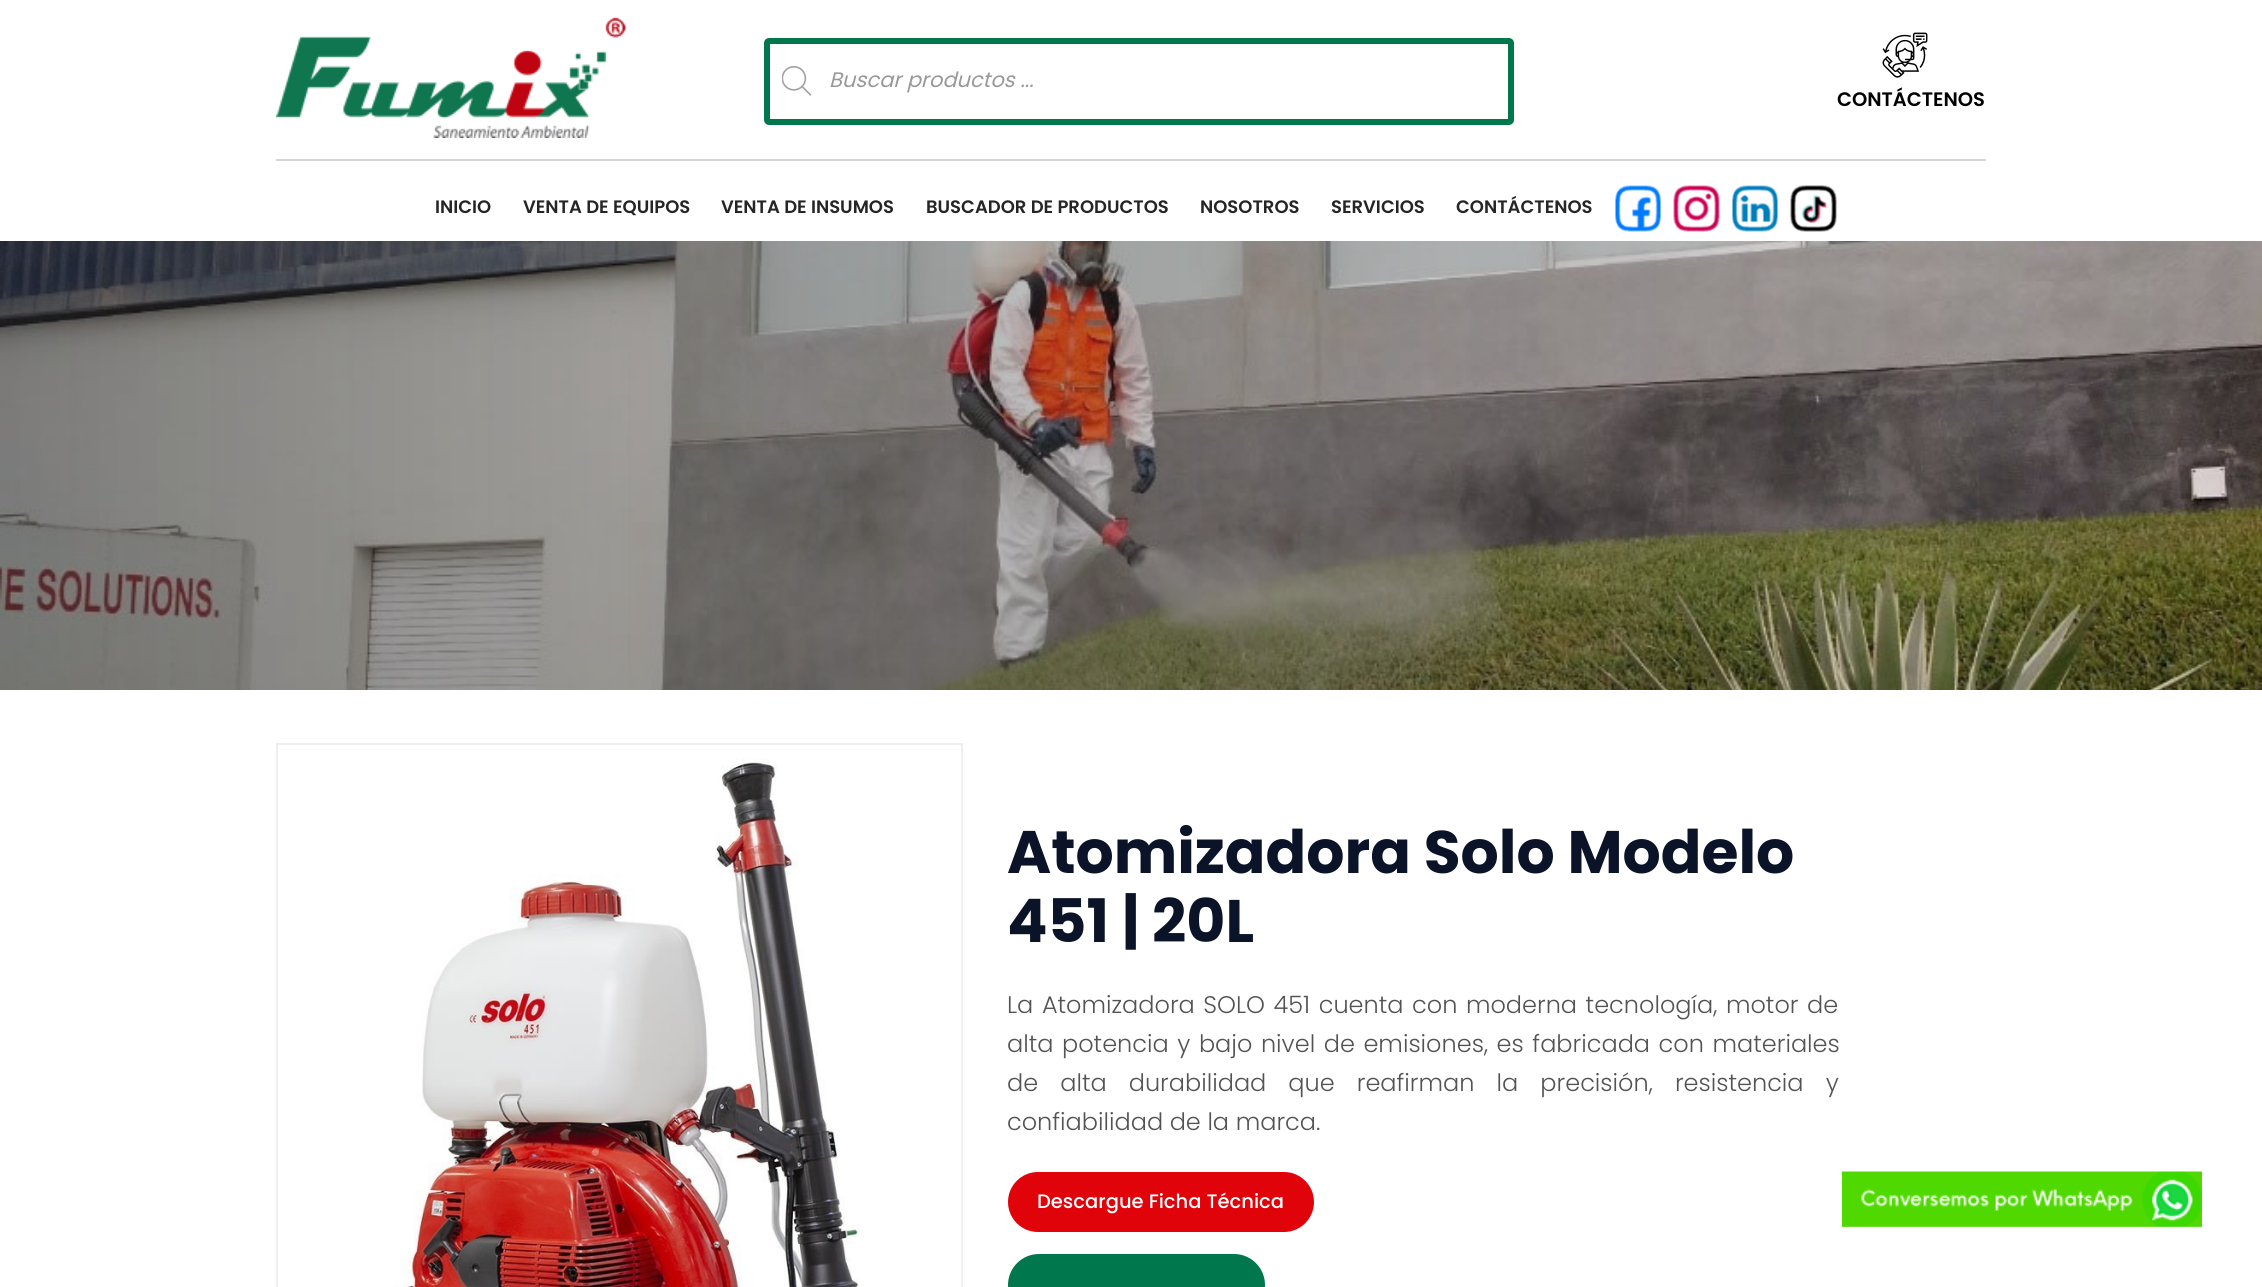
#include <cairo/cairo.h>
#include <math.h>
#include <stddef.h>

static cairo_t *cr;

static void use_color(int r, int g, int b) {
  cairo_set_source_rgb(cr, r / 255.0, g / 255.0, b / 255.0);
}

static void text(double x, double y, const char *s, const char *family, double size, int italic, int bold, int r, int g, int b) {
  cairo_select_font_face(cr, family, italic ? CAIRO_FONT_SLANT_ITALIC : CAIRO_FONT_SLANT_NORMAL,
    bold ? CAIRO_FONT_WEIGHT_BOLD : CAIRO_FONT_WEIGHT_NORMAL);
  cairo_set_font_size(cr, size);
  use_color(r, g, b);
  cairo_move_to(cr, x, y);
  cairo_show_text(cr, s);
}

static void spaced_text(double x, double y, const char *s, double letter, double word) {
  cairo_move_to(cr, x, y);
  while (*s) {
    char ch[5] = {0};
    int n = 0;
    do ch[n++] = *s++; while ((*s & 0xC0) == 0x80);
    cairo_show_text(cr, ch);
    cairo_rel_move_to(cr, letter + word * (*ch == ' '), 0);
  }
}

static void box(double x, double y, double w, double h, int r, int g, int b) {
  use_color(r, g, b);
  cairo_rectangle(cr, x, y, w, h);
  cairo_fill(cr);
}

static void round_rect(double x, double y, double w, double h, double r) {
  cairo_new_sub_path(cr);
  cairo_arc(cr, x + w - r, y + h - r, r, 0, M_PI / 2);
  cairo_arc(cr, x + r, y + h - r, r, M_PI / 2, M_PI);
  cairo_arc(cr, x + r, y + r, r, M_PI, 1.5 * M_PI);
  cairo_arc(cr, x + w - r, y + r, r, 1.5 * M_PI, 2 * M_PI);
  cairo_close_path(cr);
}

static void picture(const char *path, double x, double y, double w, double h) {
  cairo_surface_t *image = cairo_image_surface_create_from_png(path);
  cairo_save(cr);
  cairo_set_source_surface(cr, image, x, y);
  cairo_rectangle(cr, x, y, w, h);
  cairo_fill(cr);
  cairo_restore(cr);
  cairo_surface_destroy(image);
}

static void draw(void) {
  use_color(255, 255, 255);
  cairo_paint(cr);
  picture("img_01.png", 276, 17, 350, 121);
  round_rect(767, 41, 744, 81, 2);
  use_color(0, 119, 76);
  cairo_set_line_width(cr, 6);
  cairo_stroke(cr);
  picture("img_02.png", 782, 66, 30, 30);
  picture("img_03.png", 1882, 32, 46, 46);
  box(276, 159, 1710, 2, 214, 214, 214);
  picture("img_04.png", 1615, 185, 46, 47);
  picture("img_05.png", 1673, 185, 47, 47);
  picture("img_06.png", 1732, 185, 46, 47);
  picture("img_07.png", 1790, 185, 47, 47);
  picture("img_08.png", 0, 241, 2262, 449);
  cairo_rectangle(cr, 277, 744, 685, 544);
  use_color(238, 238, 238);
  cairo_set_line_width(cr, 2);
  cairo_stroke(cr);
  picture("img_09.png", 277, 752, 685, 535);
  use_color(224, 3, 10);
  round_rect(1008, 1172, 306, 60, 30);
  cairo_fill(cr);
  use_color(0, 119, 76);
  round_rect(1008, 1254, 257, 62, 31);
  cairo_fill(cr);
  picture("img_10.png", 1842, 1171, 360, 56);
  text(829, 87, "Buscar productos ...", "Poppins", 21, 1, 0, 153, 153, 153);
  text(1837, 106, "CONTÁCTENOS", "Poppins SemiBold", 19.5, 0, 0, 0, 0, 0);
  text(435, 213, "INICIO", "Poppins SemiBold", 18, 0, 0, 37, 37, 37);
  text(523, 213, "VENTA DE EQUIPOS", "Poppins SemiBold", 18, 0, 0, 37, 37, 37);
  text(721, 213, "VENTA DE INSUMOS", "Poppins SemiBold", 18, 0, 0, 37, 37, 37);
  text(926, 213, "BUSCADOR DE PRODUCTOS", "Poppins SemiBold", 18, 0, 0, 37, 37, 37);
  text(1200, 213, "NOSOTROS", "Poppins SemiBold", 18, 0, 0, 37, 37, 37);
  text(1331, 213, "SERVICIOS", "Poppins SemiBold", 18, 0, 0, 37, 37, 37);
  text(1456, 213, "CONTÁCTENOS", "Poppins SemiBold", 18, 0, 0, 37, 37, 37);
  text(1007, 873, "Atomizadora Solo Modelo", "Poppins", 60, 0, 1, 10, 19, 40);
  text(1007, 942, "451 | 20L", "Poppins", 60, 0, 1, 10, 19, 40);
  cairo_select_font_face(cr, "Poppins Light", CAIRO_FONT_SLANT_NORMAL, CAIRO_FONT_WEIGHT_NORMAL);
  cairo_set_font_size(cr, 24);
  use_color(83, 83, 83);
  spaced_text(1007, 1013, "La Atomizadora SOLO 451 cuenta con moderna tecnología, motor de", 0, 2);
  spaced_text(1007, 1052, "alta potencia y bajo nivel de emisiones, es fabricada con materiales", 0, 2);
  spaced_text(1007, 1091, "de alta durabilidad que reafirman la precisión, resistencia y", 0, 15.5);
  text(1007, 1130, "confiabilidad de la marca.", "Poppins Light", 24, 0, 0, 83, 83, 83);
  text(1037, 1208, "Descargue Ficha Técnica", "Poppins Medium", 19.5, 0, 0, 255, 255, 255);
}

int main(void) {
  cairo_surface_t *surface = cairo_image_surface_create(CAIRO_FORMAT_RGB24, 2262, 1287);
  cr = cairo_create(surface);
  cairo_font_options_t *options = cairo_font_options_create();
  cairo_font_options_set_hint_metrics(options, CAIRO_HINT_METRICS_OFF);
  cairo_font_options_set_hint_style(options, CAIRO_HINT_STYLE_NONE);
  cairo_set_font_options(cr, options);
  cairo_set_miter_limit(cr, 4);
  draw();
  cairo_surface_write_to_png(surface, "out.png");
  cairo_font_options_destroy(options);
  cairo_destroy(cr);
  cairo_surface_destroy(surface);
  return 0;
}
